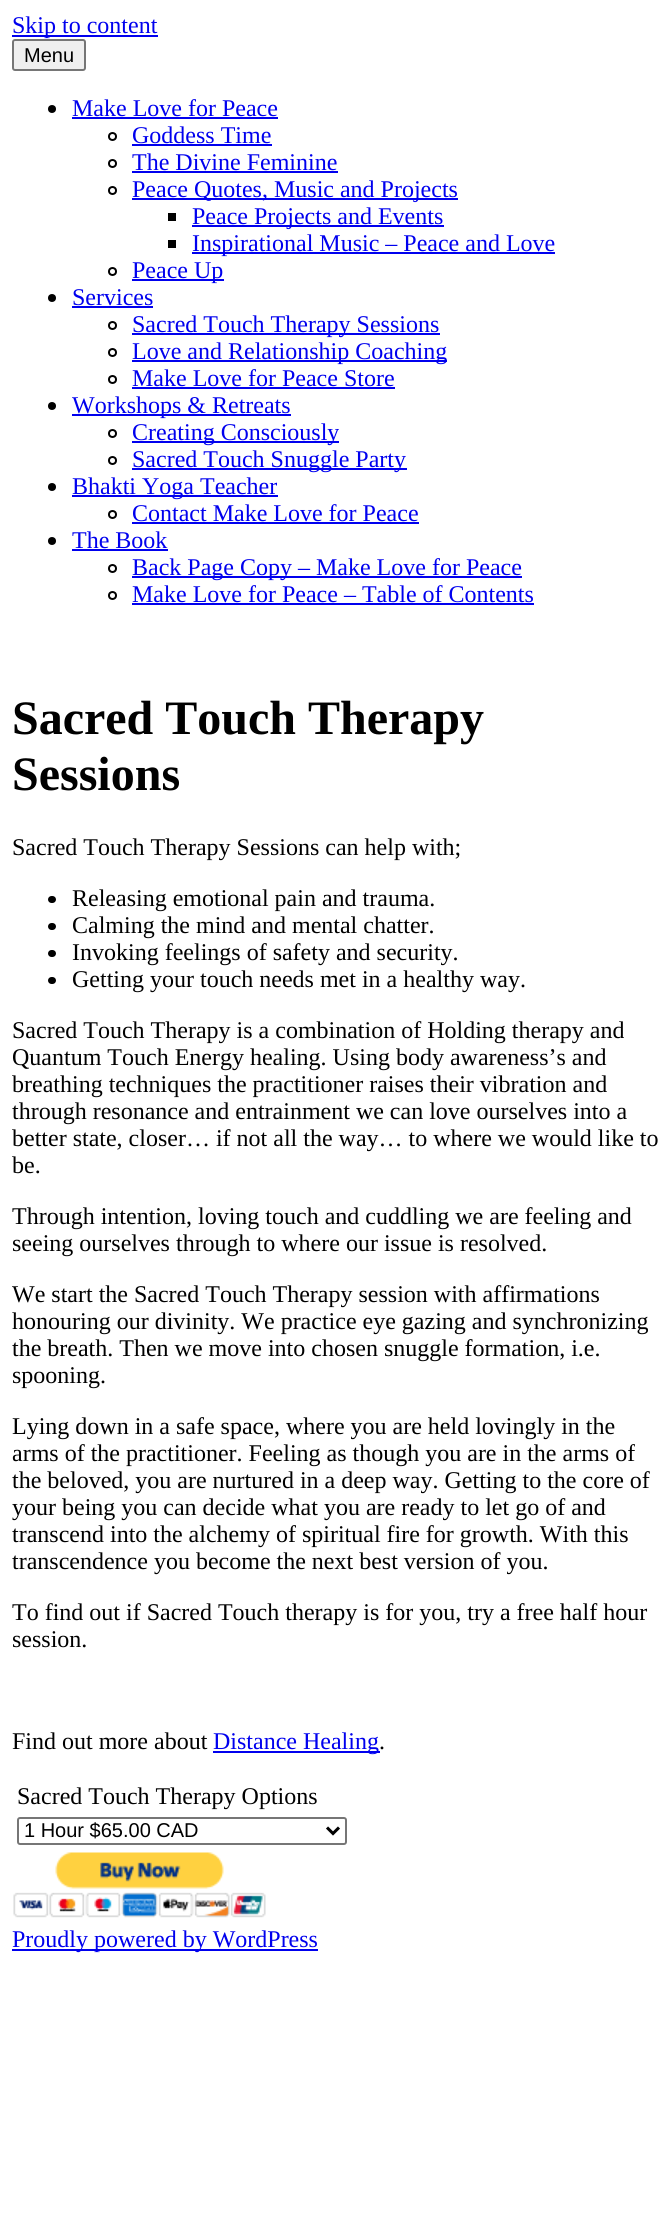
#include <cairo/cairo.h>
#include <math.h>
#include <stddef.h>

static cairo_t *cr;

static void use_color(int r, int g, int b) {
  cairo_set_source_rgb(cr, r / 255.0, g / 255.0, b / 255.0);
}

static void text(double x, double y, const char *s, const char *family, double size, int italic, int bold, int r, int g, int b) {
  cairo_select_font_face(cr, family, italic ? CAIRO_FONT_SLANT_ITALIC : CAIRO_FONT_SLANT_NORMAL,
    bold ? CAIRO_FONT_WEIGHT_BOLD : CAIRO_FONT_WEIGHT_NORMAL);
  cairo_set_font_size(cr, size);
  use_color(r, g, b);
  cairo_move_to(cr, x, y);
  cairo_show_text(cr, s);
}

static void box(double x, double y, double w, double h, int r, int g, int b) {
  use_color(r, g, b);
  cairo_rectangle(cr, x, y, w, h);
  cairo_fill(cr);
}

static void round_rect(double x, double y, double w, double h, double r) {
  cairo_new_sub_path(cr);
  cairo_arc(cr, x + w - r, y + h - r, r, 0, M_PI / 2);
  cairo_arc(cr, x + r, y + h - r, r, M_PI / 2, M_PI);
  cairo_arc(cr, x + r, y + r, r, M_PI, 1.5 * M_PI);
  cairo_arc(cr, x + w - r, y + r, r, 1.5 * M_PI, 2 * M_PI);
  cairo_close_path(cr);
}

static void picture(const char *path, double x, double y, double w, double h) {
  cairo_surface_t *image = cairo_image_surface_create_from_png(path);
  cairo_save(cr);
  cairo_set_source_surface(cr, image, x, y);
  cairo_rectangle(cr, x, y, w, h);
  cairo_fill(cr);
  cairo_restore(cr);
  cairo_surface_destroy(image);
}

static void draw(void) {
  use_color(255, 255, 255);
  cairo_paint(cr);
  box(12, 35, 146, 2, 0, 0, 238);
  use_color(239, 239, 239);
  round_rect(13, 40, 72, 30, 2);
  cairo_fill_preserve(cr);
  use_color(118, 118, 118);
  cairo_stroke(cr);
  use_color(0, 0, 0);
  cairo_arc(cr, 52, 109, 4, 0, 2 * M_PI);
  cairo_fill(cr);
  box(72, 117, 206, 2, 0, 0, 238);
  cairo_arc(cr, 112.5, 136.5, 3.5, 0, 2 * M_PI);
  use_color(0, 0, 0);
  cairo_stroke(cr);
  box(132, 144, 140, 2, 0, 0, 238);
  cairo_arc(cr, 112.5, 163.5, 3.5, 0, 2 * M_PI);
  use_color(0, 0, 0);
  cairo_stroke(cr);
  box(132, 171, 206, 2, 0, 0, 238);
  cairo_arc(cr, 112.5, 190.5, 3.5, 0, 2 * M_PI);
  use_color(0, 0, 0);
  cairo_stroke(cr);
  box(132, 198, 326, 2, 0, 0, 238);
  box(168, 213, 8, 8, 0, 0, 0);
  box(192, 225, 252, 2, 0, 0, 238);
  box(168, 240, 8, 8, 0, 0, 0);
  box(192, 252, 363, 2, 0, 0, 238);
  cairo_arc(cr, 112.5, 271.5, 3.5, 0, 2 * M_PI);
  use_color(0, 0, 0);
  cairo_stroke(cr);
  box(132, 279, 92, 2, 0, 0, 238);
  use_color(0, 0, 0);
  cairo_arc(cr, 52, 298, 4, 0, 2 * M_PI);
  cairo_fill(cr);
  box(72, 306, 81, 2, 0, 0, 238);
  cairo_arc(cr, 112.5, 325.5, 3.5, 0, 2 * M_PI);
  use_color(0, 0, 0);
  cairo_stroke(cr);
  box(132, 333, 308, 2, 0, 0, 238);
  cairo_arc(cr, 112.5, 352.5, 3.5, 0, 2 * M_PI);
  use_color(0, 0, 0);
  cairo_stroke(cr);
  box(132, 360, 315, 2, 0, 0, 238);
  cairo_arc(cr, 112.5, 379.5, 3.5, 0, 2 * M_PI);
  use_color(0, 0, 0);
  cairo_stroke(cr);
  box(132, 387, 263, 2, 0, 0, 238);
  use_color(0, 0, 0);
  cairo_arc(cr, 52, 406, 4, 0, 2 * M_PI);
  cairo_fill(cr);
  box(72, 414, 219, 2, 0, 0, 238);
  cairo_arc(cr, 112.5, 433.5, 3.5, 0, 2 * M_PI);
  use_color(0, 0, 0);
  cairo_stroke(cr);
  box(132, 441, 207, 2, 0, 0, 238);
  cairo_arc(cr, 112.5, 460.5, 3.5, 0, 2 * M_PI);
  use_color(0, 0, 0);
  cairo_stroke(cr);
  box(132, 468, 275, 2, 0, 0, 238);
  use_color(0, 0, 0);
  cairo_arc(cr, 52, 487, 4, 0, 2 * M_PI);
  cairo_fill(cr);
  box(72, 495, 206, 2, 0, 0, 238);
  cairo_arc(cr, 112.5, 514.5, 3.5, 0, 2 * M_PI);
  use_color(0, 0, 0);
  cairo_stroke(cr);
  box(132, 522, 287, 2, 0, 0, 238);
  use_color(0, 0, 0);
  cairo_arc(cr, 52, 541, 4, 0, 2 * M_PI);
  cairo_fill(cr);
  box(72, 549, 96, 2, 0, 0, 238);
  cairo_arc(cr, 112.5, 568.5, 3.5, 0, 2 * M_PI);
  use_color(0, 0, 0);
  cairo_stroke(cr);
  box(132, 576, 390, 2, 0, 0, 238);
  cairo_arc(cr, 112.5, 595.5, 3.5, 0, 2 * M_PI);
  use_color(0, 0, 0);
  cairo_stroke(cr);
  box(132, 603, 402, 2, 0, 0, 238);
  use_color(0, 0, 0);
  round_rect(48, 896, 8, 7, 3.5);
  cairo_fill(cr);
  round_rect(48, 923, 8, 7, 3.5);
  cairo_fill(cr);
  round_rect(48, 950, 8, 7, 3.5);
  cairo_fill(cr);
  round_rect(48, 977, 8, 7, 3.5);
  cairo_fill(cr);
  box(213, 1751, 167, 2, 0, 0, 238);
  round_rect(18, 1818, 328, 26, 2);
  use_color(118, 118, 118);
  cairo_stroke(cr);
  cairo_new_path(cr);
  cairo_move_to(cr, 327, 1827.5);
  cairo_line_to(cr, 333, 1833.5);
  cairo_line_to(cr, 339, 1827.5);
  use_color(0, 0, 0);
  cairo_set_line_width(cr, 3);
  cairo_stroke(cr);
  picture("img_01.png", 13, 1852, 253, 66);
  box(12, 1949, 306, 2, 0, 0, 238);
  text(12, 33, "Skip to content", "Liberation Serif", 24, 0, 0, 0, 0, 238);
  text(24, 62, "Menu", "Liberation Sans", 20, 0, 0, 0, 0, 0);
  text(72, 116, "Make Love for Peace", "Liberation Serif", 24, 0, 0, 0, 0, 238);
  text(132, 143, "Goddess Time", "Liberation Serif", 24, 0, 0, 0, 0, 238);
  text(132, 170, "The Divine Feminine", "Liberation Serif", 24, 0, 0, 0, 0, 238);
  text(132, 197, "Peace Quotes, Music and Projects", "Liberation Serif", 24, 0, 0, 0, 0, 238);
  text(192, 224, "Peace Projects and Events", "Liberation Serif", 24, 0, 0, 0, 0, 238);
  text(192, 251, "Inspirational Music – Peace and Love", "Liberation Serif", 24, 0, 0, 0, 0, 238);
  text(132, 278, "Peace Up", "Liberation Serif", 24, 0, 0, 0, 0, 238);
  text(72, 305, "Services", "Liberation Serif", 24, 0, 0, 0, 0, 238);
  text(132, 332, "Sacred Touch Therapy Sessions", "Liberation Serif", 24, 0, 0, 0, 0, 238);
  text(132, 359, "Love and Relationship Coaching", "Liberation Serif", 24, 0, 0, 0, 0, 238);
  text(132, 386, "Make Love for Peace Store", "Liberation Serif", 24, 0, 0, 0, 0, 238);
  text(72, 413, "Workshops & Retreats", "Liberation Serif", 24, 0, 0, 0, 0, 238);
  text(132, 440, "Creating Consciously", "Liberation Serif", 24, 0, 0, 0, 0, 238);
  text(132, 467, "Sacred Touch Snuggle Party", "Liberation Serif", 24, 0, 0, 0, 0, 238);
  text(72, 494, "Bhakti Yoga Teacher", "Liberation Serif", 24, 0, 0, 0, 0, 238);
  text(132, 521, "Contact Make Love for Peace", "Liberation Serif", 24, 0, 0, 0, 0, 238);
  text(72, 548, "The Book", "Liberation Serif", 24, 0, 0, 0, 0, 238);
  text(132, 575, "Back Page Copy – Make Love for Peace", "Liberation Serif", 24, 0, 0, 0, 0, 238);
  text(132, 602, "Make Love for Peace – Table of Contents", "Liberation Serif", 24, 0, 0, 0, 0, 238);
  text(12, 734, "Sacred Touch Therapy", "Liberation Serif", 48, 0, 1, 0, 0, 0);
  text(12, 790, "Sessions", "Liberation Serif", 48, 0, 1, 0, 0, 0);
  text(12, 855, "Sacred Touch Therapy Sessions can help with;", "Liberation Serif", 24, 0, 0, 0, 0, 0);
  text(72, 906, "Releasing emotional pain and trauma.", "Liberation Serif", 24, 0, 0, 0, 0, 0);
  text(72, 933, "Calming the mind and mental chatter.", "Liberation Serif", 24, 0, 0, 0, 0, 0);
  text(72, 960, "Invoking feelings of safety and security.", "Liberation Serif", 24, 0, 0, 0, 0, 0);
  text(72, 987, "Getting your touch needs met in a healthy way.", "Liberation Serif", 24, 0, 0, 0, 0, 0);
  text(12, 1038, "Sacred Touch Therapy is a combination of Holding therapy and", "Liberation Serif", 24, 0, 0, 0, 0, 0);
  text(12, 1065, "Quantum Touch Energy healing. Using body awareness’s and", "Liberation Serif", 24, 0, 0, 0, 0, 0);
  text(12, 1092, "breathing techniques the practitioner raises their vibration and", "Liberation Serif", 24, 0, 0, 0, 0, 0);
  text(12, 1119, "through resonance and entrainment we can love ourselves into a", "Liberation Serif", 24, 0, 0, 0, 0, 0);
  text(12, 1146, "better state, closer… if not all the way… to where we would like to", "Liberation Serif", 24, 0, 0, 0, 0, 0);
  text(12, 1173, "be.", "Liberation Serif", 24, 0, 0, 0, 0, 0);
  text(12, 1224, "Through intention, loving touch and cuddling we are feeling and", "Liberation Serif", 24, 0, 0, 0, 0, 0);
  text(12, 1251, "seeing ourselves through to where our issue is resolved.", "Liberation Serif", 24, 0, 0, 0, 0, 0);
  text(12, 1302, "We start the Sacred Touch Therapy session with affirmations", "Liberation Serif", 24, 0, 0, 0, 0, 0);
  text(12, 1329, "honouring our divinity. We practice eye gazing and synchronizing", "Liberation Serif", 24, 0, 0, 0, 0, 0);
  text(12, 1356, "the breath. Then we move into chosen snuggle formation, i.e.", "Liberation Serif", 24, 0, 0, 0, 0, 0);
  text(12, 1383, "spooning.", "Liberation Serif", 24, 0, 0, 0, 0, 0);
  text(12, 1434, "Lying down in a safe space, where you are held lovingly in the", "Liberation Serif", 24, 0, 0, 0, 0, 0);
  text(12, 1461, "arms of the practitioner. Feeling as though you are in the arms of", "Liberation Serif", 24, 0, 0, 0, 0, 0);
  text(12, 1488, "the beloved, you are nurtured in a deep way. Getting to the core of", "Liberation Serif", 24, 0, 0, 0, 0, 0);
  text(12, 1515, "your being you can decide what you are ready to let go of and", "Liberation Serif", 24, 0, 0, 0, 0, 0);
  text(12, 1542, "transcend into the alchemy of spiritual fire for growth. With this", "Liberation Serif", 24, 0, 0, 0, 0, 0);
  text(12, 1569, "transcendence you become the next best version of you.", "Liberation Serif", 24, 0, 0, 0, 0, 0);
  text(12, 1620, "To find out if Sacred Touch therapy is for you, try a free half hour", "Liberation Serif", 24, 0, 0, 0, 0, 0);
  text(12, 1647, "session.", "Liberation Serif", 24, 0, 0, 0, 0, 0);
  text(12, 1749, "Find out more about", "Liberation Serif", 24, 0, 0, 0, 0, 0);
  text(213, 1749, "Distance Healing", "Liberation Serif", 24, 0, 0, 0, 0, 238);
  text(379, 1749, ".", "Liberation Serif", 24, 0, 0, 0, 0, 0);
  text(17, 1804, "Sacred Touch Therapy Options", "Liberation Serif", 24, 0, 0, 0, 0, 0);
  text(24, 1837, "1 Hour $65.00 CAD", "Liberation Sans", 20, 0, 0, 0, 0, 0);
  text(12, 1947, "Proudly powered by WordPress", "Liberation Serif", 24, 0, 0, 0, 0, 238);
}

int main(void) {
  cairo_surface_t *surface = cairo_image_surface_create(CAIRO_FORMAT_RGB24, 671, 2223);
  cr = cairo_create(surface);
  cairo_font_options_t *options = cairo_font_options_create();
  cairo_font_options_set_hint_metrics(options, CAIRO_HINT_METRICS_OFF);
  cairo_font_options_set_hint_style(options, CAIRO_HINT_STYLE_NONE);
  cairo_set_font_options(cr, options);
  cairo_set_miter_limit(cr, 4);
  draw();
  cairo_surface_write_to_png(surface, "out.png");
  cairo_font_options_destroy(options);
  cairo_destroy(cr);
  cairo_surface_destroy(surface);
  return 0;
}
